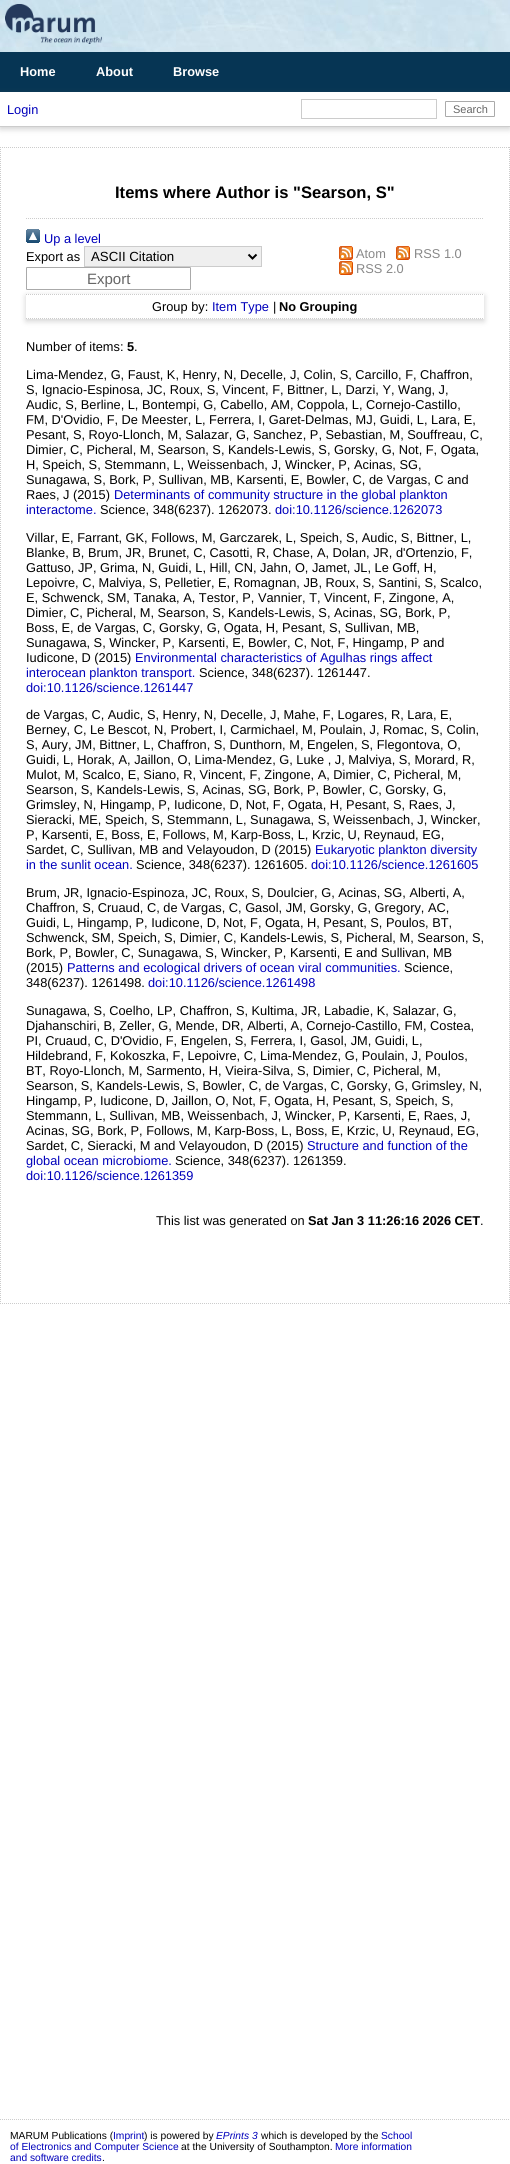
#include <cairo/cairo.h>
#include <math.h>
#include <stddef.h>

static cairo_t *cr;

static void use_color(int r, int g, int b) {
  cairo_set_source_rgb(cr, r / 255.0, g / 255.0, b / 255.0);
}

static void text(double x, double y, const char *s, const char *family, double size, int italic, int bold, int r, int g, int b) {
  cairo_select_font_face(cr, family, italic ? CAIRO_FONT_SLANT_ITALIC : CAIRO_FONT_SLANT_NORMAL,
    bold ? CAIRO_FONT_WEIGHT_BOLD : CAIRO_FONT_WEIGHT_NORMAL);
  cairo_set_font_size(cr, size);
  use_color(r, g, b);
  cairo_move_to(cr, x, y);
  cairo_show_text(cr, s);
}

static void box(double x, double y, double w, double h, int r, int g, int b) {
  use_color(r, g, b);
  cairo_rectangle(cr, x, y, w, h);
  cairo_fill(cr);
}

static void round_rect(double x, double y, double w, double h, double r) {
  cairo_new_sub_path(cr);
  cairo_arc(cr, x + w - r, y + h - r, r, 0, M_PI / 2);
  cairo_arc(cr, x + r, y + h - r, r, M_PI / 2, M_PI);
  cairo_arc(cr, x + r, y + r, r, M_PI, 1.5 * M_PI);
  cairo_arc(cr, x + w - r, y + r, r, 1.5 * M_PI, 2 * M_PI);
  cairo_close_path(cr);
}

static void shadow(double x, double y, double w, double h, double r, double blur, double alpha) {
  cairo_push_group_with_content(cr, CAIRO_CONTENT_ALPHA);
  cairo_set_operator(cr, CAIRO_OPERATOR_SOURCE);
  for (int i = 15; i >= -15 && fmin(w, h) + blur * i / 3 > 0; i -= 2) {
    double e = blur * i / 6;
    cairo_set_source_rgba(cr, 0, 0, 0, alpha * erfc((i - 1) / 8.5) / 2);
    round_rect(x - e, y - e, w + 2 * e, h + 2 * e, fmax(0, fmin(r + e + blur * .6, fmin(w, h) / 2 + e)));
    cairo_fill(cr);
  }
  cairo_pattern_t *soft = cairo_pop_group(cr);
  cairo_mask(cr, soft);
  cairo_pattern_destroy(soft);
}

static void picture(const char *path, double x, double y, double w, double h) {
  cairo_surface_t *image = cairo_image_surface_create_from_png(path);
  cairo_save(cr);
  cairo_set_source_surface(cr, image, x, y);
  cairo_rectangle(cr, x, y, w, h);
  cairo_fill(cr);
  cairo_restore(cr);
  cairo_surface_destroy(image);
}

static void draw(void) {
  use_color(255, 255, 255);
  cairo_paint(cr);
  picture("img_01.png", 0, 0, 510, 52);
  picture("img_02.png", 5, 4, 97, 40);
  box(0, 52, 510, 40, 6, 53, 84);
  use_color(100, 100, 100);
  shadow(0, 94, 510, 35, 0, 3, 0.3);
  box(0, 92, 510, 34, 255, 255, 255);
  box(0, 126, 510, 1, 204, 204, 204);
  cairo_rectangle(cr, 301.5, 99.5, 135, 19);
  cairo_set_line_width(cr, 1);
  cairo_stroke(cr);
  round_rect(445.5, 101.5, 49, 15, 0.5);
  use_color(170, 170, 170);
  cairo_stroke(cr);
  cairo_new_path(cr);
  cairo_move_to(cr, 0, 147.5);
  cairo_line_to(cr, 510, 147.5);
  use_color(204, 204, 204);
  cairo_set_dash(cr, (double[]){1, 1}, 2, 0);
  cairo_stroke(cr);
  cairo_new_path(cr);
  cairo_move_to(cr, 509.5, 147);
  cairo_line_to(cr, 509.5, 1304);
  cairo_stroke(cr);
  cairo_new_path(cr);
  cairo_move_to(cr, 0, 1303.5);
  cairo_line_to(cr, 510, 1303.5);
  cairo_stroke(cr);
  cairo_new_path(cr);
  cairo_move_to(cr, 0.5, 147);
  cairo_line_to(cr, 0.5, 1304);
  cairo_stroke(cr);
  cairo_new_path(cr);
  cairo_move_to(cr, 26, 218.5);
  cairo_line_to(cr, 484, 218.5);
  cairo_stroke(cr);
  picture("img_03.png", 26, 229, 14, 14);
  use_color(239, 239, 239);
  cairo_rectangle(cr, 84.5, 246.5, 177, 20);
  cairo_fill_preserve(cr);
  use_color(204, 204, 204);
  cairo_set_dash(cr, NULL, 0, 0);
  cairo_stroke(cr);
  cairo_new_path(cr);
  cairo_move_to(cr, 248.5, 254.5);
  cairo_line_to(cr, 252.5, 258.5);
  cairo_line_to(cr, 256.5, 254.5);
  use_color(0, 0, 0);
  cairo_set_line_width(cr, 2);
  cairo_stroke(cr);
  cairo_save(cr);
  cairo_set_fill_rule(cr, CAIRO_FILL_RULE_EVEN_ODD);
  cairo_new_path(cr);
  cairo_move_to(cr, 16, 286);
  cairo_line_to(cr, 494, 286);
  cairo_line_to(cr, 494, 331);
  cairo_line_to(cr, 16, 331);
  cairo_close_path(cr);
  cairo_move_to(cr, 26, 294);
  cairo_line_to(cr, 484, 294);
  cairo_line_to(cr, 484, 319);
  cairo_line_to(cr, 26, 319);
  cairo_close_path(cr);
  cairo_clip(cr);
  use_color(100, 100, 100);
  shadow(26, 296, 458, 25, 0, 3, 0.3);
  cairo_restore(cr);
  round_rect(26.5, 267.5, 164, 22, 0.5);
  use_color(170, 170, 170);
  cairo_set_line_width(cr, 1);
  cairo_stroke(cr);
  picture("img_04.png", 339, 246, 14, 14);
  picture("img_04.png", 396, 246, 14, 14);
  picture("img_04.png", 339, 261, 14, 14);
  cairo_new_path(cr);
  cairo_move_to(cr, 26, 294.5);
  cairo_line_to(cr, 484, 294.5);
  use_color(204, 204, 204);
  cairo_set_dash(cr, (double[]){1, 1}, 2, 0);
  cairo_stroke(cr);
  cairo_new_path(cr);
  cairo_move_to(cr, 26, 318.5);
  cairo_line_to(cr, 484, 318.5);
  cairo_stroke(cr);
  cairo_new_path(cr);
  cairo_move_to(cr, 0, 2119.5);
  cairo_line_to(cr, 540, 2119.5);
  cairo_stroke(cr);
  text(20, 76, "Home", "Liberation Sans", 12.8, 0, 1, 255, 255, 255);
  text(96, 76, "About", "Liberation Sans", 12.8, 0, 1, 255, 255, 255);
  text(173, 76, "Browse", "Liberation Sans", 12.8, 0, 1, 255, 255, 255);
  text(7, 114, "Login", "Liberation Sans", 12.8, 0, 0, 0, 0, 187);
  text(453, 113, "Search", "Liberation Sans", 11, 0, 0, 102, 102, 102);
  text(115, 198, "Items where Author is \"Searson, S\"", "Liberation Sans", 16.6, 0, 1, 0, 0, 0);
  text(44, 243, "Up a level", "Liberation Sans", 12.8, 0, 0, 0, 0, 187);
  text(26, 261, "Export as", "Liberation Sans", 12.8, 0, 0, 0, 0, 0);
  text(91, 261, "ASCII Citation", "Liberation Sans", 13.25, 0, 0, 0, 0, 0);
  text(87, 284, "Export", "Liberation Sans", 15, 0, 0, 102, 102, 102);
  text(356, 258, "Atom", "Liberation Sans", 12.8, 0, 0, 136, 136, 136);
  text(414, 258, "RSS 1.0", "Liberation Sans", 12.8, 0, 0, 136, 136, 136);
  text(356, 273, "RSS 2.0", "Liberation Sans", 12.8, 0, 0, 136, 136, 136);
  text(152, 311, "Group by:", "Liberation Sans", 12.8, 0, 0, 0, 0, 0);
  text(212, 311, "Item Type", "Liberation Sans", 12.8, 0, 0, 0, 0, 187);
  text(273, 311, "|", "Liberation Sans", 12.8, 0, 0, 0, 0, 0);
  text(279, 311, "No Grouping", "Liberation Sans", 12.8, 0, 1, 0, 0, 0);
  text(26, 351, "Number of items:", "Liberation Sans", 12.8, 0, 0, 0, 0, 0);
  text(127, 351, "5", "Liberation Sans", 12.8, 0, 1, 0, 0, 0);
  text(134, 351, ".", "Liberation Sans", 12.8, 0, 0, 0, 0, 0);
  text(26, 379, "Lima-Mendez, G, Faust, K, Henry, N, Decelle, J, Colin, S, Carcillo, F, Chaffron,", "Liberation Sans", 12.8, 0, 0, 0, 0, 0);
  text(26, 394, "S, Ignacio-Espinosa, JC, Roux, S, Vincent, F, Bittner, L, Darzi, Y, Wang, J,", "Liberation Sans", 12.8, 0, 0, 0, 0, 0);
  text(26, 409, "Audic, S, Berline, L, Bontempi, G, Cabello, AM, Coppola, L, Cornejo-Castillo,", "Liberation Sans", 12.8, 0, 0, 0, 0, 0);
  text(26, 424, "FM, D'Ovidio, F, De Meester, L, Ferrera, I, Garet-Delmas, MJ, Guidi, L, Lara, E,", "Liberation Sans", 12.8, 0, 0, 0, 0, 0);
  text(26, 439, "Pesant, S, Royo-Llonch, M, Salazar, G, Sanchez, P, Sebastian, M, Souffreau, C,", "Liberation Sans", 12.8, 0, 0, 0, 0, 0);
  text(26, 454, "Dimier, C, Picheral, M, Searson, S, Kandels-Lewis, S, Gorsky, G, Not, F, Ogata,", "Liberation Sans", 12.8, 0, 0, 0, 0, 0);
  text(26, 469, "H, Speich, S, Stemmann, L, Weissenbach, J, Wincker, P, Acinas, SG,", "Liberation Sans", 12.8, 0, 0, 0, 0, 0);
  text(26, 484, "Sunagawa, S, Bork, P, Sullivan, MB, Karsenti, E, Bowler, C, de Vargas, C and", "Liberation Sans", 12.8, 0, 0, 0, 0, 0);
  text(26, 499, "Raes, J (2015)", "Liberation Sans", 12.8, 0, 0, 0, 0, 0);
  text(114, 499, "Determinants of community structure in the global plankton", "Liberation Sans", 12.8, 0, 0, 0, 0, 187);
  text(26, 514, "interactome.", "Liberation Sans", 12.8, 0, 0, 0, 0, 187);
  text(100, 514, "Science, 348(6237). 1262073.", "Liberation Sans", 12.8, 0, 0, 0, 0, 0);
  text(275, 514, "doi:10.1126/science.1262073", "Liberation Sans", 12.8, 0, 0, 0, 0, 187);
  text(26, 542, "Villar, E, Farrant, GK, Follows, M, Garczarek, L, Speich, S, Audic, S, Bittner, L,", "Liberation Sans", 12.8, 0, 0, 0, 0, 0);
  text(26, 557, "Blanke, B, Brum, JR, Brunet, C, Casotti, R, Chase, A, Dolan, JR, d'Ortenzio, F,", "Liberation Sans", 12.8, 0, 0, 0, 0, 0);
  text(26, 572, "Gattuso, JP, Grima, N, Guidi, L, Hill, CN, Jahn, O, Jamet, JL, Le Goff, H,", "Liberation Sans", 12.8, 0, 0, 0, 0, 0);
  text(26, 587, "Lepoivre, C, Malviya, S, Pelletier, E, Romagnan, JB, Roux, S, Santini, S, Scalco,", "Liberation Sans", 12.8, 0, 0, 0, 0, 0);
  text(26, 602, "E, Schwenck, SM, Tanaka, A, Testor, P, Vannier, T, Vincent, F, Zingone, A,", "Liberation Sans", 12.8, 0, 0, 0, 0, 0);
  text(26, 617, "Dimier, C, Picheral, M, Searson, S, Kandels-Lewis, S, Acinas, SG, Bork, P,", "Liberation Sans", 12.8, 0, 0, 0, 0, 0);
  text(26, 632, "Boss, E, de Vargas, C, Gorsky, G, Ogata, H, Pesant, S, Sullivan, MB,", "Liberation Sans", 12.8, 0, 0, 0, 0, 0);
  text(26, 647, "Sunagawa, S, Wincker, P, Karsenti, E, Bowler, C, Not, F, Hingamp, P and", "Liberation Sans", 12.8, 0, 0, 0, 0, 0);
  text(26, 662, "Iudicone, D (2015)", "Liberation Sans", 12.8, 0, 0, 0, 0, 0);
  text(135, 662, "Environmental characteristics of Agulhas rings affect", "Liberation Sans", 12.8, 0, 0, 0, 0, 187);
  text(26, 677, "interocean plankton transport.", "Liberation Sans", 12.8, 0, 0, 0, 0, 187);
  text(199, 677, "Science, 348(6237). 1261447.", "Liberation Sans", 12.8, 0, 0, 0, 0, 0);
  text(26, 692, "doi:10.1126/science.1261447", "Liberation Sans", 12.8, 0, 0, 0, 0, 187);
  text(26, 719, "de Vargas, C, Audic, S, Henry, N, Decelle, J, Mahe, F, Logares, R, Lara, E,", "Liberation Sans", 12.8, 0, 0, 0, 0, 0);
  text(26, 734, "Berney, C, Le Bescot, N, Probert, I, Carmichael, M, Poulain, J, Romac, S, Colin,", "Liberation Sans", 12.8, 0, 0, 0, 0, 0);
  text(26, 749, "S, Aury, JM, Bittner, L, Chaffron, S, Dunthorn, M, Engelen, S, Flegontova, O,", "Liberation Sans", 12.8, 0, 0, 0, 0, 0);
  text(26, 764, "Guidi, L, Horak, A, Jaillon, O, Lima-Mendez, G, Luke , J, Malviya, S, Morard, R,", "Liberation Sans", 12.8, 0, 0, 0, 0, 0);
  text(26, 779, "Mulot, M, Scalco, E, Siano, R, Vincent, F, Zingone, A, Dimier, C, Picheral, M,", "Liberation Sans", 12.8, 0, 0, 0, 0, 0);
  text(26, 794, "Searson, S, Kandels-Lewis, S, Acinas, SG, Bork, P, Bowler, C, Gorsky, G,", "Liberation Sans", 12.8, 0, 0, 0, 0, 0);
  text(26, 809, "Grimsley, N, Hingamp, P, Iudicone, D, Not, F, Ogata, H, Pesant, S, Raes, J,", "Liberation Sans", 12.8, 0, 0, 0, 0, 0);
  text(26, 824, "Sieracki, ME, Speich, S, Stemmann, L, Sunagawa, S, Weissenbach, J, Wincker,", "Liberation Sans", 12.8, 0, 0, 0, 0, 0);
  text(26, 839, "P, Karsenti, E, Boss, E, Follows, M, Karp-Boss, L, Krzic, U, Reynaud, EG,", "Liberation Sans", 12.8, 0, 0, 0, 0, 0);
  text(26, 854, "Sardet, C, Sullivan, MB and Velayoudon, D (2015)", "Liberation Sans", 12.8, 0, 0, 0, 0, 0);
  text(315, 854, "Eukaryotic plankton diversity", "Liberation Sans", 12.8, 0, 0, 0, 0, 187);
  text(26, 869, "in the sunlit ocean.", "Liberation Sans", 12.8, 0, 0, 0, 0, 187);
  text(136, 869, "Science, 348(6237). 1261605.", "Liberation Sans", 12.8, 0, 0, 0, 0, 0);
  text(311, 869, "doi:10.1126/science.1261605", "Liberation Sans", 12.8, 0, 0, 0, 0, 187);
  text(26, 897, "Brum, JR, Ignacio-Espinoza, JC, Roux, S, Doulcier, G, Acinas, SG, Alberti, A,", "Liberation Sans", 12.8, 0, 0, 0, 0, 0);
  text(26, 912, "Chaffron, S, Cruaud, C, de Vargas, C, Gasol, JM, Gorsky, G, Gregory, AC,", "Liberation Sans", 12.8, 0, 0, 0, 0, 0);
  text(26, 927, "Guidi, L, Hingamp, P, Iudicone, D, Not, F, Ogata, H, Pesant, S, Poulos, BT,", "Liberation Sans", 12.8, 0, 0, 0, 0, 0);
  text(26, 942, "Schwenck, SM, Speich, S, Dimier, C, Kandels-Lewis, S, Picheral, M, Searson, S,", "Liberation Sans", 12.8, 0, 0, 0, 0, 0);
  text(26, 957, "Bork, P, Bowler, C, Sunagawa, S, Wincker, P, Karsenti, E and Sullivan, MB", "Liberation Sans", 12.8, 0, 0, 0, 0, 0);
  text(26, 972, "(2015)", "Liberation Sans", 12.8, 0, 0, 0, 0, 0);
  text(67, 972, "Patterns and ecological drivers of ocean viral communities.", "Liberation Sans", 12.8, 0, 0, 0, 0, 187);
  text(404, 972, "Science,", "Liberation Sans", 12.8, 0, 0, 0, 0, 0);
  text(26, 987, "348(6237). 1261498.", "Liberation Sans", 12.8, 0, 0, 0, 0, 0);
  text(148, 987, "doi:10.1126/science.1261498", "Liberation Sans", 12.8, 0, 0, 0, 0, 187);
  text(26, 1015, "Sunagawa, S, Coelho, LP, Chaffron, S, Kultima, JR, Labadie, K, Salazar, G,", "Liberation Sans", 12.8, 0, 0, 0, 0, 0);
  text(26, 1030, "Djahanschiri, B, Zeller, G, Mende, DR, Alberti, A, Cornejo-Castillo, FM, Costea,", "Liberation Sans", 12.8, 0, 0, 0, 0, 0);
  text(26, 1045, "PI, Cruaud, C, D'Ovidio, F, Engelen, S, Ferrera, I, Gasol, JM, Guidi, L,", "Liberation Sans", 12.8, 0, 0, 0, 0, 0);
  text(26, 1060, "Hildebrand, F, Kokoszka, F, Lepoivre, C, Lima-Mendez, G, Poulain, J, Poulos,", "Liberation Sans", 12.8, 0, 0, 0, 0, 0);
  text(26, 1075, "BT, Royo-Llonch, M, Sarmento, H, Vieira-Silva, S, Dimier, C, Picheral, M,", "Liberation Sans", 12.8, 0, 0, 0, 0, 0);
  text(26, 1090, "Searson, S, Kandels-Lewis, S, Bowler, C, de Vargas, C, Gorsky, G, Grimsley, N,", "Liberation Sans", 12.8, 0, 0, 0, 0, 0);
  text(26, 1105, "Hingamp, P, Iudicone, D, Jaillon, O, Not, F, Ogata, H, Pesant, S, Speich, S,", "Liberation Sans", 12.8, 0, 0, 0, 0, 0);
  text(26, 1120, "Stemmann, L, Sullivan, MB, Weissenbach, J, Wincker, P, Karsenti, E, Raes, J,", "Liberation Sans", 12.8, 0, 0, 0, 0, 0);
  text(26, 1135, "Acinas, SG, Bork, P, Follows, M, Karp-Boss, L, Boss, E, Krzic, U, Reynaud, EG,", "Liberation Sans", 12.8, 0, 0, 0, 0, 0);
  text(26, 1150, "Sardet, C, Sieracki, M and Velayoudon, D (2015)", "Liberation Sans", 12.8, 0, 0, 0, 0, 0);
  text(307, 1150, "Structure and function of the", "Liberation Sans", 12.8, 0, 0, 0, 0, 187);
  text(26, 1165, "global ocean microbiome.", "Liberation Sans", 12.8, 0, 0, 0, 0, 187);
  text(175, 1165, "Science, 348(6237). 1261359.", "Liberation Sans", 12.8, 0, 0, 0, 0, 0);
  text(26, 1180, "doi:10.1126/science.1261359", "Liberation Sans", 12.8, 0, 0, 0, 0, 187);
  text(156, 1225, "This list was generated on", "Liberation Sans", 12.8, 0, 0, 0, 0, 0);
  text(308, 1225, "Sat Jan 3 11:26:16 2026 CET", "Liberation Sans", 12.8, 0, 1, 0, 0, 0);
  text(480, 1225, ".", "Liberation Sans", 12.8, 0, 0, 0, 0, 0);
  text(10, 2139, "MARUM Publications (", "Liberation Sans", 10.25, 0, 0, 0, 0, 0);
  text(113, 2139, "Imprint", "Liberation Sans", 10.25, 0, 0, 0, 0, 187);
  text(144, 2139, ") is powered by", "Liberation Sans", 10.25, 0, 0, 0, 0, 0);
  text(216, 2139, "EPrints 3", "Liberation Sans", 10.25, 1, 0, 0, 0, 187);
  text(261, 2139, "which is developed by the", "Liberation Sans", 10.25, 0, 0, 0, 0, 0);
  text(381, 2139, "School", "Liberation Sans", 10.25, 0, 0, 0, 0, 187);
  text(10, 2150, "of Electronics and Computer Science", "Liberation Sans", 10.25, 0, 0, 0, 0, 187);
  text(181, 2150, "at the University of Southampton.", "Liberation Sans", 10.25, 0, 0, 0, 0, 0);
  text(335, 2150, "More information", "Liberation Sans", 10.25, 0, 0, 0, 0, 187);
  text(10, 2161, "and software credits", "Liberation Sans", 10.25, 0, 0, 0, 0, 187);
  text(102, 2161, ".", "Liberation Sans", 10.25, 0, 0, 0, 0, 0);
}

int main(void) {
  cairo_surface_t *surface = cairo_image_surface_create(CAIRO_FORMAT_RGB24, 510, 2164);
  cr = cairo_create(surface);
  cairo_font_options_t *options = cairo_font_options_create();
  cairo_font_options_set_hint_metrics(options, CAIRO_HINT_METRICS_OFF);
  cairo_font_options_set_hint_style(options, CAIRO_HINT_STYLE_NONE);
  cairo_set_font_options(cr, options);
  cairo_set_miter_limit(cr, 4);
  draw();
  cairo_surface_write_to_png(surface, "out.png");
  cairo_font_options_destroy(options);
  cairo_destroy(cr);
  cairo_surface_destroy(surface);
  return 0;
}
